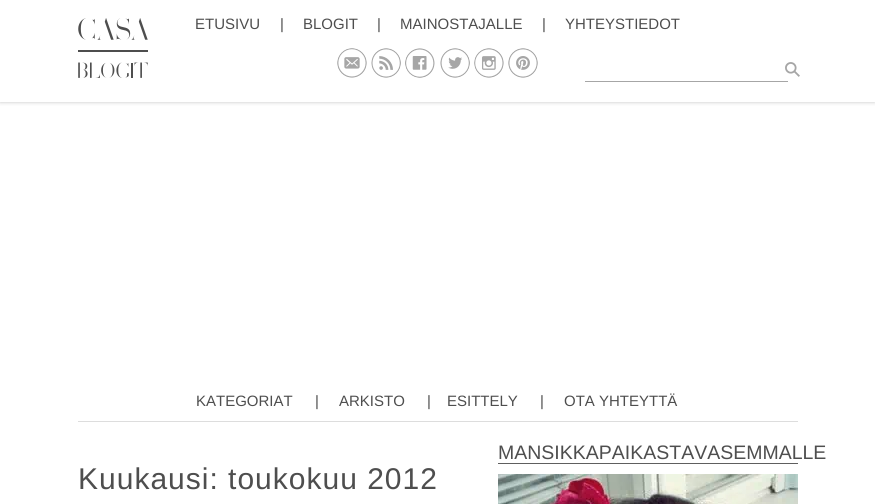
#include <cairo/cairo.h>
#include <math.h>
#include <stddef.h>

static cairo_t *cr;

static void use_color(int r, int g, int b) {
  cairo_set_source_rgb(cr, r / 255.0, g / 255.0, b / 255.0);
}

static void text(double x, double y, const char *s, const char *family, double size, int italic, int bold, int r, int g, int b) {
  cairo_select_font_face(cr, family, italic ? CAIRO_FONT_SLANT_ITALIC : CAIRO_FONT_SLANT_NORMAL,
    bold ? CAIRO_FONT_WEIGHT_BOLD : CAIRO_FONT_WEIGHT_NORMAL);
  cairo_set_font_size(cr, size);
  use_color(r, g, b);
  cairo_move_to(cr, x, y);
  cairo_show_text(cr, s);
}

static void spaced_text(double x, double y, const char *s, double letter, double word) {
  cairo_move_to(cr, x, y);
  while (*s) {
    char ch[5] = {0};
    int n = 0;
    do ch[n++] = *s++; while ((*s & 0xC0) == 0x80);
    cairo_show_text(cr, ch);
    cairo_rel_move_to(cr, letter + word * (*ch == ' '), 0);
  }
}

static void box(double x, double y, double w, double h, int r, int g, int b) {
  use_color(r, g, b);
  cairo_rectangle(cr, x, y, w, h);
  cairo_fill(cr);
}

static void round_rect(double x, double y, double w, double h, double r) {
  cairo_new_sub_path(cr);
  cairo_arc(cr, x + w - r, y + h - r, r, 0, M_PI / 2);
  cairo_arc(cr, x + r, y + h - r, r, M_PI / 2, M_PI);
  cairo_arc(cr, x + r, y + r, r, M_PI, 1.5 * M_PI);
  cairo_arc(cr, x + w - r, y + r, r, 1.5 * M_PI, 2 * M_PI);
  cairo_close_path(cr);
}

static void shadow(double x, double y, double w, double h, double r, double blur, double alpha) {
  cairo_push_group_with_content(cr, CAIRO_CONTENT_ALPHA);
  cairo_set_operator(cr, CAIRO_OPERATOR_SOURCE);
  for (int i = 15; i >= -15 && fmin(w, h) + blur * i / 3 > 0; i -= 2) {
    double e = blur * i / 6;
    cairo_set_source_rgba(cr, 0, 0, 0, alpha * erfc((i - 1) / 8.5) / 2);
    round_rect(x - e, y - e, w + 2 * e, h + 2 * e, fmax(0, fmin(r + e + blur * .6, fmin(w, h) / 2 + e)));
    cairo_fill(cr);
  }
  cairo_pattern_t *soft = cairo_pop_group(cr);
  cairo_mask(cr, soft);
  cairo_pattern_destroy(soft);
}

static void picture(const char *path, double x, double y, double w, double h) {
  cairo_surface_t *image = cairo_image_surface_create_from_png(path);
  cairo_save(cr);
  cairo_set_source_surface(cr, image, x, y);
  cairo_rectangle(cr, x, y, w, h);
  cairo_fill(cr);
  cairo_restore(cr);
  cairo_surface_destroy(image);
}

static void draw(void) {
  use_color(255, 255, 255);
  cairo_paint(cr);
  cairo_save(cr);
  cairo_rectangle(cr, 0, 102, 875, 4);
  cairo_clip(cr);
  use_color(166, 166, 166);
  shadow(0, -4, 875, 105, 0, 2.5, 1);
  cairo_restore(cr);
  picture("img_01.png", 78, 18, 70, 60);
  picture("img_02.png", 337, 48, 30, 30);
  picture("img_03.png", 371, 48, 30, 30);
  picture("img_04.png", 405, 48, 30, 30);
  picture("img_05.png", 440, 48, 30, 30);
  picture("img_06.png", 474, 48, 30, 30);
  picture("img_07.png", 508, 48, 30, 30);
  picture("img_08.png", 785, 62, 15, 15);
  box(585, 81, 203, 1, 166, 166, 166);
  box(78, 421, 720, 1, 221, 221, 221);
  box(498, 463, 300, 1, 94, 94, 94);
  picture("img_09.png", 498, 474, 300, 30);
  text(195, 29, "ETUSIVU", "Liberation Sans", 15, 0, 0, 78, 78, 78);
  text(280, 29, "|", "Liberation Sans", 15, 0, 0, 78, 78, 78);
  text(303, 29, "BLOGIT", "Liberation Sans", 15, 0, 0, 78, 78, 78);
  text(377, 29, "|", "Liberation Sans", 15, 0, 0, 78, 78, 78);
  text(400, 29, "MAINOSTAJALLE", "Liberation Sans", 15, 0, 0, 78, 78, 78);
  text(542, 29, "|", "Liberation Sans", 15, 0, 0, 78, 78, 78);
  text(565, 29, "YHTEYSTIEDOT", "Liberation Sans", 15, 0, 0, 78, 78, 78);
  text(196, 406, "KATEGORIAT", "Liberation Sans", 15, 0, 0, 78, 78, 78);
  text(315, 406, "|", "Liberation Sans", 15, 0, 0, 78, 78, 78);
  text(339, 406, "ARKISTO", "Liberation Sans", 15, 0, 0, 78, 78, 78);
  text(427, 406, "|", "Liberation Sans", 15, 0, 0, 78, 78, 78);
  text(447, 406, "ESITTELY", "Liberation Sans", 15, 0, 0, 78, 78, 78);
  text(540, 406, "|", "Liberation Sans", 15, 0, 0, 78, 78, 78);
  text(564, 406, "OTA YHTEYTTÄ", "Liberation Sans", 15, 0, 0, 78, 78, 78);
  text(498, 459, "MANSIKKAPAIKASTAVASEMMALLE", "Liberation Sans", 19.5, 0, 0, 78, 78, 78);
  cairo_set_font_size(cr, 30);
  spaced_text(78, 489, "Kuukausi: toukokuu 2012", 1, 0);
}

int main(void) {
  cairo_surface_t *surface = cairo_image_surface_create(CAIRO_FORMAT_RGB24, 875, 504);
  cr = cairo_create(surface);
  cairo_font_options_t *options = cairo_font_options_create();
  cairo_font_options_set_hint_metrics(options, CAIRO_HINT_METRICS_OFF);
  cairo_font_options_set_hint_style(options, CAIRO_HINT_STYLE_NONE);
  cairo_set_font_options(cr, options);
  cairo_set_miter_limit(cr, 4);
  draw();
  cairo_surface_write_to_png(surface, "out.png");
  cairo_font_options_destroy(options);
  cairo_destroy(cr);
  cairo_surface_destroy(surface);
  return 0;
}
